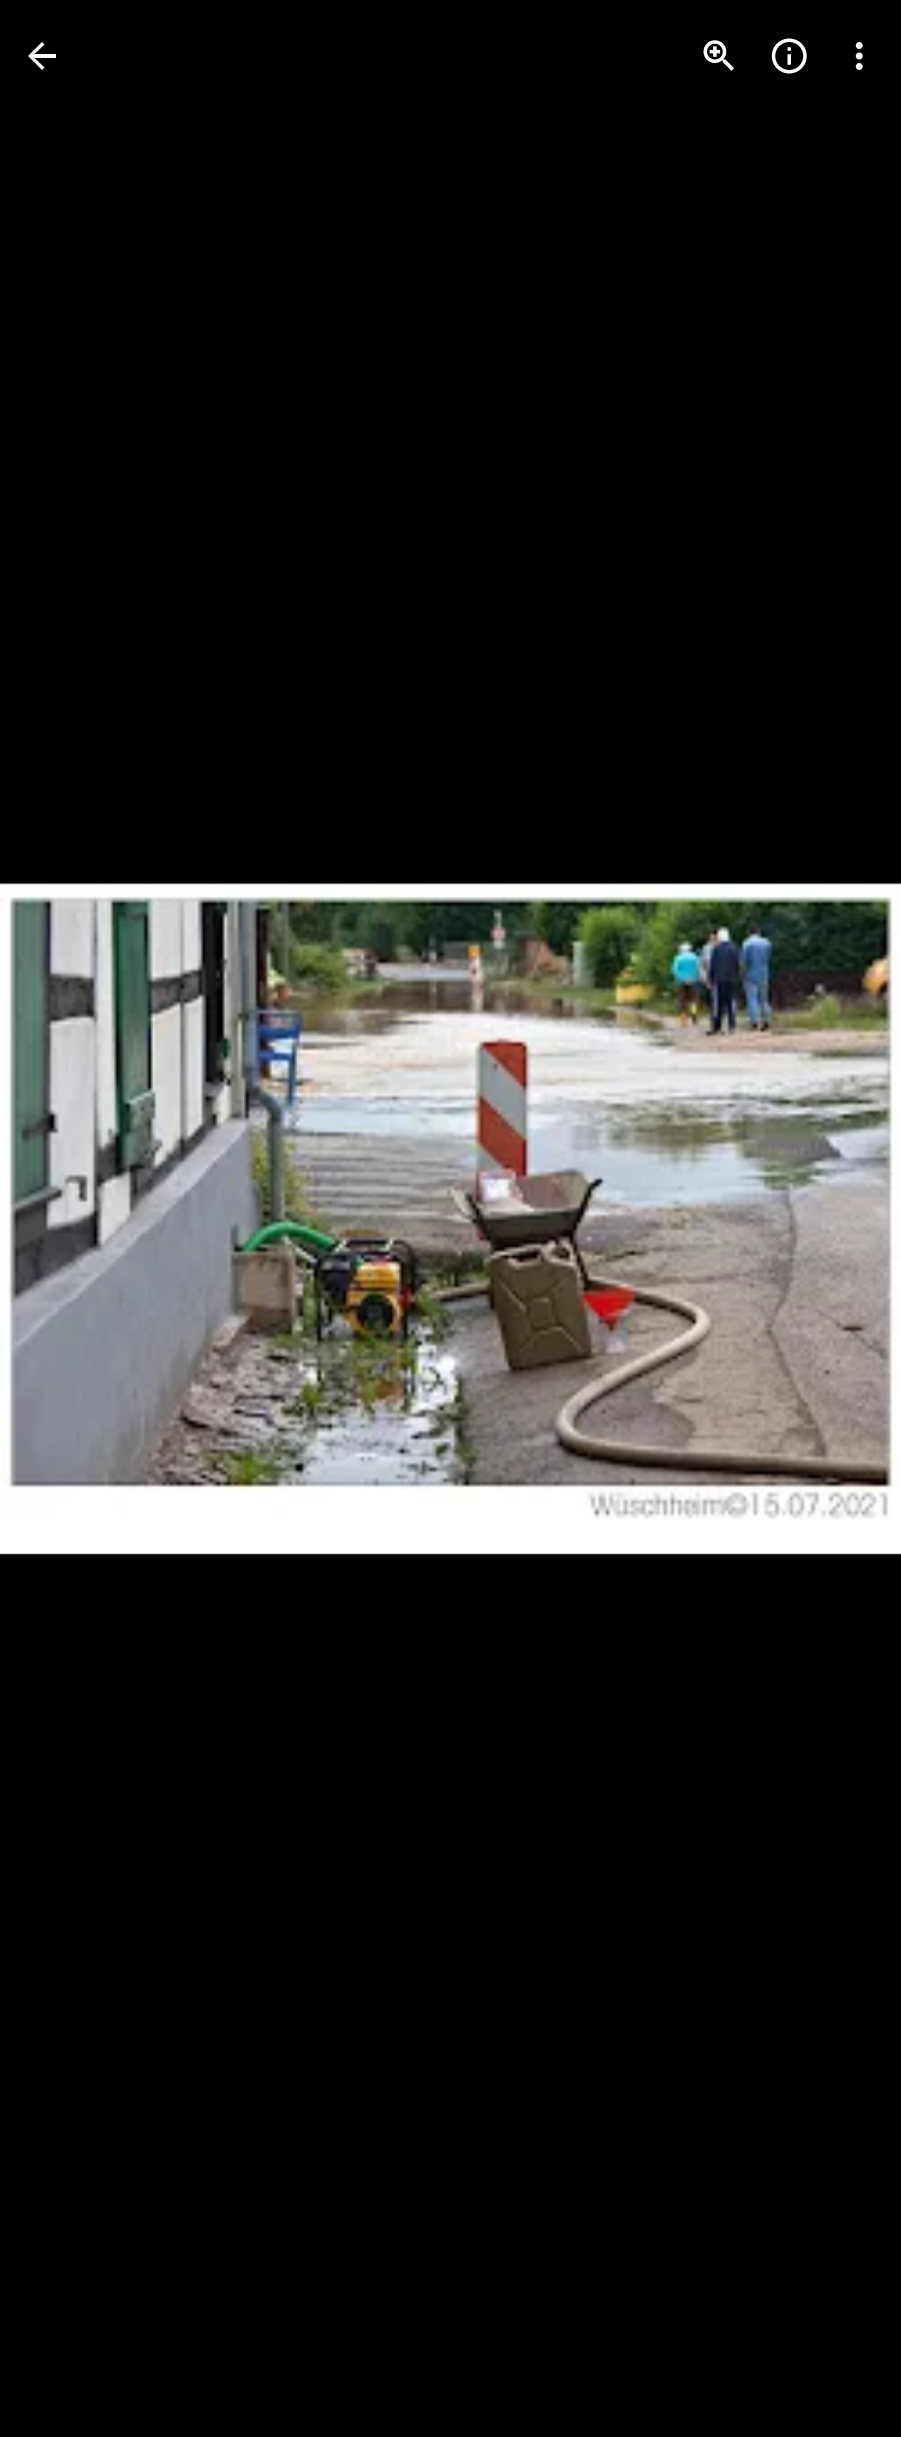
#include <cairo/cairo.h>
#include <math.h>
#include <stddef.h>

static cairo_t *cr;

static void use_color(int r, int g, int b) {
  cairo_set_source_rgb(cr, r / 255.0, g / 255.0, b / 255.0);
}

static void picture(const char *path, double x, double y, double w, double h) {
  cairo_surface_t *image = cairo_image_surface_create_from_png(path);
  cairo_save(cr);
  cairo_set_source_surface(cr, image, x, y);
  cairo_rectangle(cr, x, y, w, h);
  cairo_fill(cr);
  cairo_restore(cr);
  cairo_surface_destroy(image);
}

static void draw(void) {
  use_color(0, 0, 0);
  cairo_paint(cr);
  use_color(255, 255, 255);
  cairo_new_path(cr);
  cairo_move_to(cr, 56, 54);
  cairo_line_to(cr, 34.5, 54);
  cairo_line_to(cr, 44.5, 44.5);
  cairo_line_to(cr, 42, 42);
  cairo_line_to(cr, 28, 56);
  cairo_line_to(cr, 42, 70);
  cairo_line_to(cr, 44.5, 67.5);
  cairo_line_to(cr, 34.5, 58);
  cairo_line_to(cr, 56, 58);
  cairo_close_path(cr);
  cairo_fill(cr);
  picture("img_01.png", 703, 40, 31, 31);
  picture("img_02.png", 771, 38, 36, 36);
  picture("img_03.png", 855, 42, 8, 28);
  picture("img_04.png", 0, 883, 901, 672);
}

int main(void) {
  cairo_surface_t *surface = cairo_image_surface_create(CAIRO_FORMAT_RGB24, 901, 2437);
  cr = cairo_create(surface);
  cairo_font_options_t *options = cairo_font_options_create();
  cairo_font_options_set_hint_metrics(options, CAIRO_HINT_METRICS_OFF);
  cairo_font_options_set_hint_style(options, CAIRO_HINT_STYLE_NONE);
  cairo_set_font_options(cr, options);
  cairo_set_miter_limit(cr, 4);
  draw();
  cairo_surface_write_to_png(surface, "out.png");
  cairo_font_options_destroy(options);
  cairo_destroy(cr);
  cairo_surface_destroy(surface);
  return 0;
}
